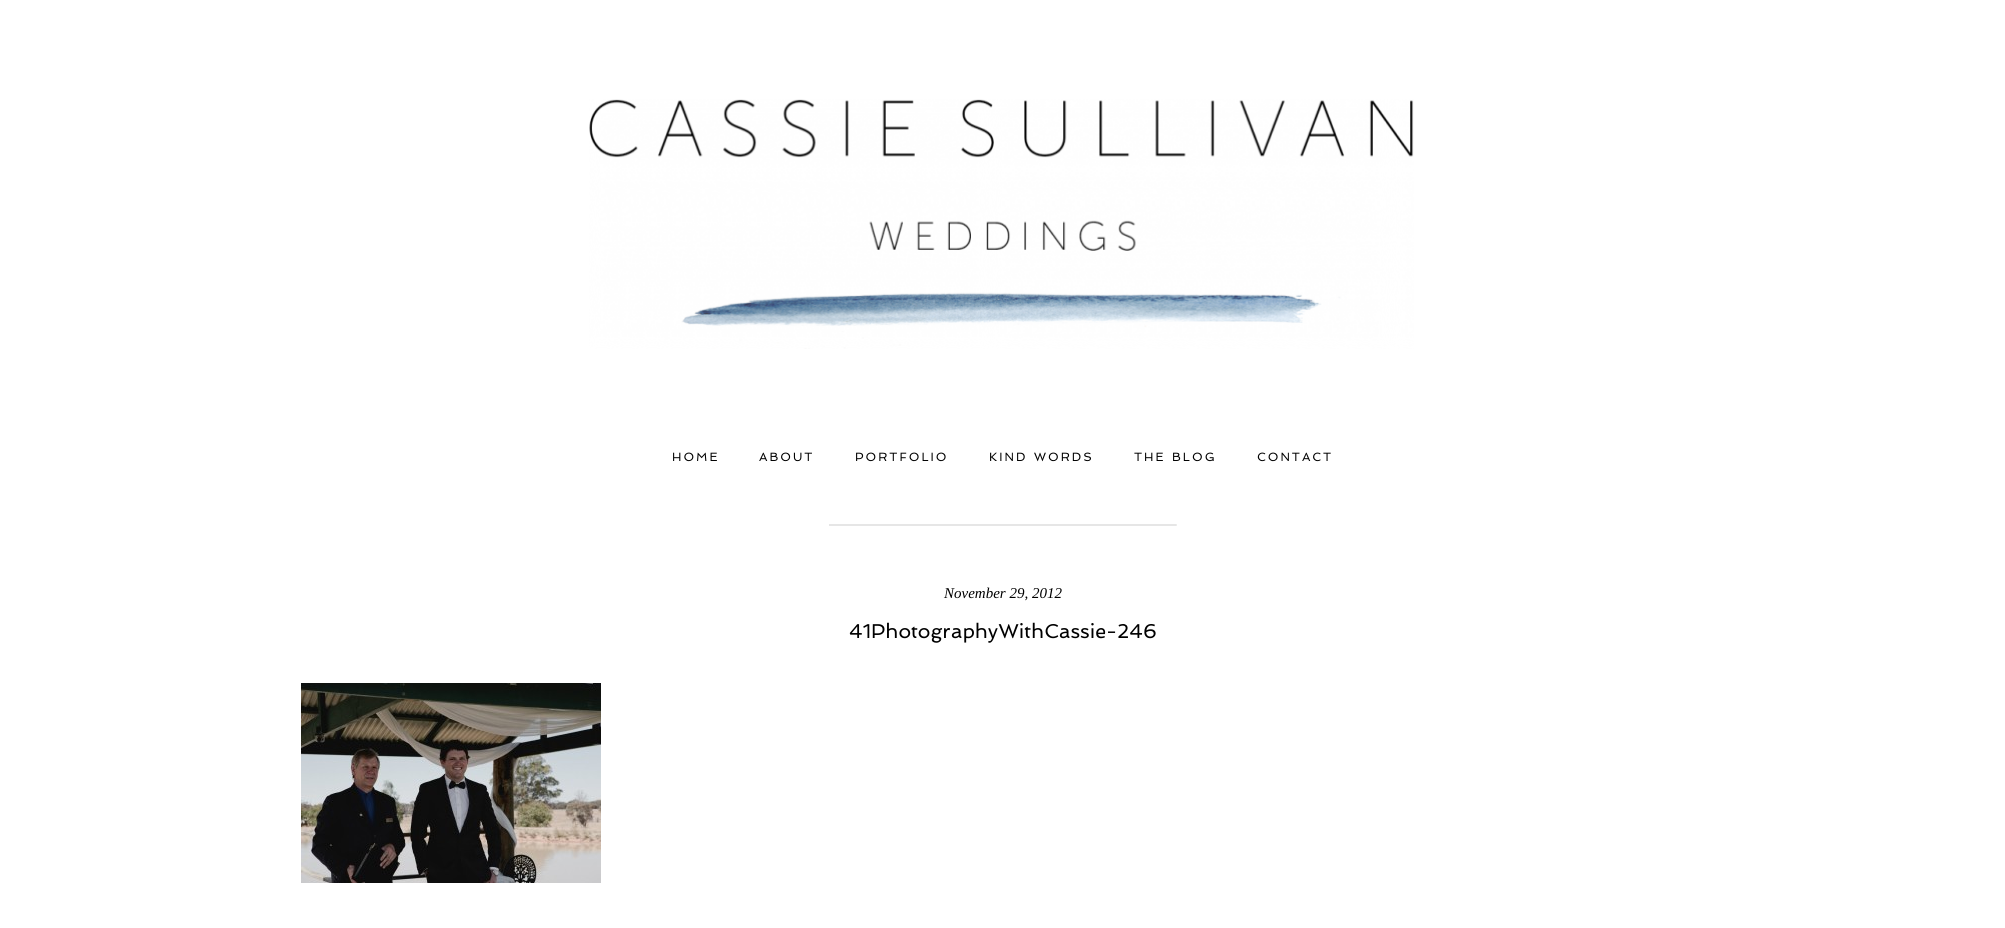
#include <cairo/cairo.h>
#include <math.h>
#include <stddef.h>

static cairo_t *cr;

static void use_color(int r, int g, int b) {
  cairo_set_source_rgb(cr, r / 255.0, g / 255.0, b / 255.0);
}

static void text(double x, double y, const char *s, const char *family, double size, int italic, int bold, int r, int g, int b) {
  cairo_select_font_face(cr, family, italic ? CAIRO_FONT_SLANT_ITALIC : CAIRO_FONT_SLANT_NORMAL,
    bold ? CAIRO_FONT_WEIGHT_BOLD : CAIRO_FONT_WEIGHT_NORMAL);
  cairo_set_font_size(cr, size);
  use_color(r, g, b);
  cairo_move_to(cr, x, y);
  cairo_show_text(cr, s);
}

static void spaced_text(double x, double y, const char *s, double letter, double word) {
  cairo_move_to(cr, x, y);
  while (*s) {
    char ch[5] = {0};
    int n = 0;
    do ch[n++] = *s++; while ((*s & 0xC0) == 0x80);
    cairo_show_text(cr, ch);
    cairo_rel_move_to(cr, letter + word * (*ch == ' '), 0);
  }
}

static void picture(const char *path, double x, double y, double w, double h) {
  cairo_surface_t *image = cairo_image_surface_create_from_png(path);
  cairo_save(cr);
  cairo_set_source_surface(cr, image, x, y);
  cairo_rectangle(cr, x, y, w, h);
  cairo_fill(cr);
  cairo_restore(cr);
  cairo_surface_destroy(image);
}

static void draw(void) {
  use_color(255, 255, 255);
  cairo_paint(cr);
  picture("img_01.png", 589, 99, 825, 250);
  picture("img_02.png", 829, 524, 348, 2);
  picture("img_03.png", 301, 683, 300, 200);
  cairo_select_font_face(cr, "Spinnaker", CAIRO_FONT_SLANT_NORMAL, CAIRO_FONT_WEIGHT_NORMAL);
  cairo_set_font_size(cr, 12);
  use_color(0, 0, 0);
  spaced_text(672, 461, "HOME", 2, 0);
  spaced_text(759, 461, "ABOUT", 2, 0);
  spaced_text(855, 461, "PORTFOLIO", 2, 0);
  spaced_text(989, 461, "KIND WORDS", 2, 1);
  spaced_text(1134, 461, "THE BLOG", 2, 1);
  spaced_text(1257, 461, "CONTACT", 2, 0);
  text(944, 598, "November 29, 2012", "Liberation Serif", 15, 1, 0, 0, 0, 0);
  text(849, 638, "41PhotographyWithCassie-246", "Spinnaker", 20, 0, 0, 0, 0, 0);
}

int main(void) {
  cairo_surface_t *surface = cairo_image_surface_create(CAIRO_FORMAT_RGB24, 2005, 928);
  cr = cairo_create(surface);
  cairo_font_options_t *options = cairo_font_options_create();
  cairo_font_options_set_hint_metrics(options, CAIRO_HINT_METRICS_OFF);
  cairo_font_options_set_hint_style(options, CAIRO_HINT_STYLE_NONE);
  cairo_set_font_options(cr, options);
  cairo_set_miter_limit(cr, 4);
  draw();
  cairo_surface_write_to_png(surface, "out.png");
  cairo_font_options_destroy(options);
  cairo_destroy(cr);
  cairo_surface_destroy(surface);
  return 0;
}
